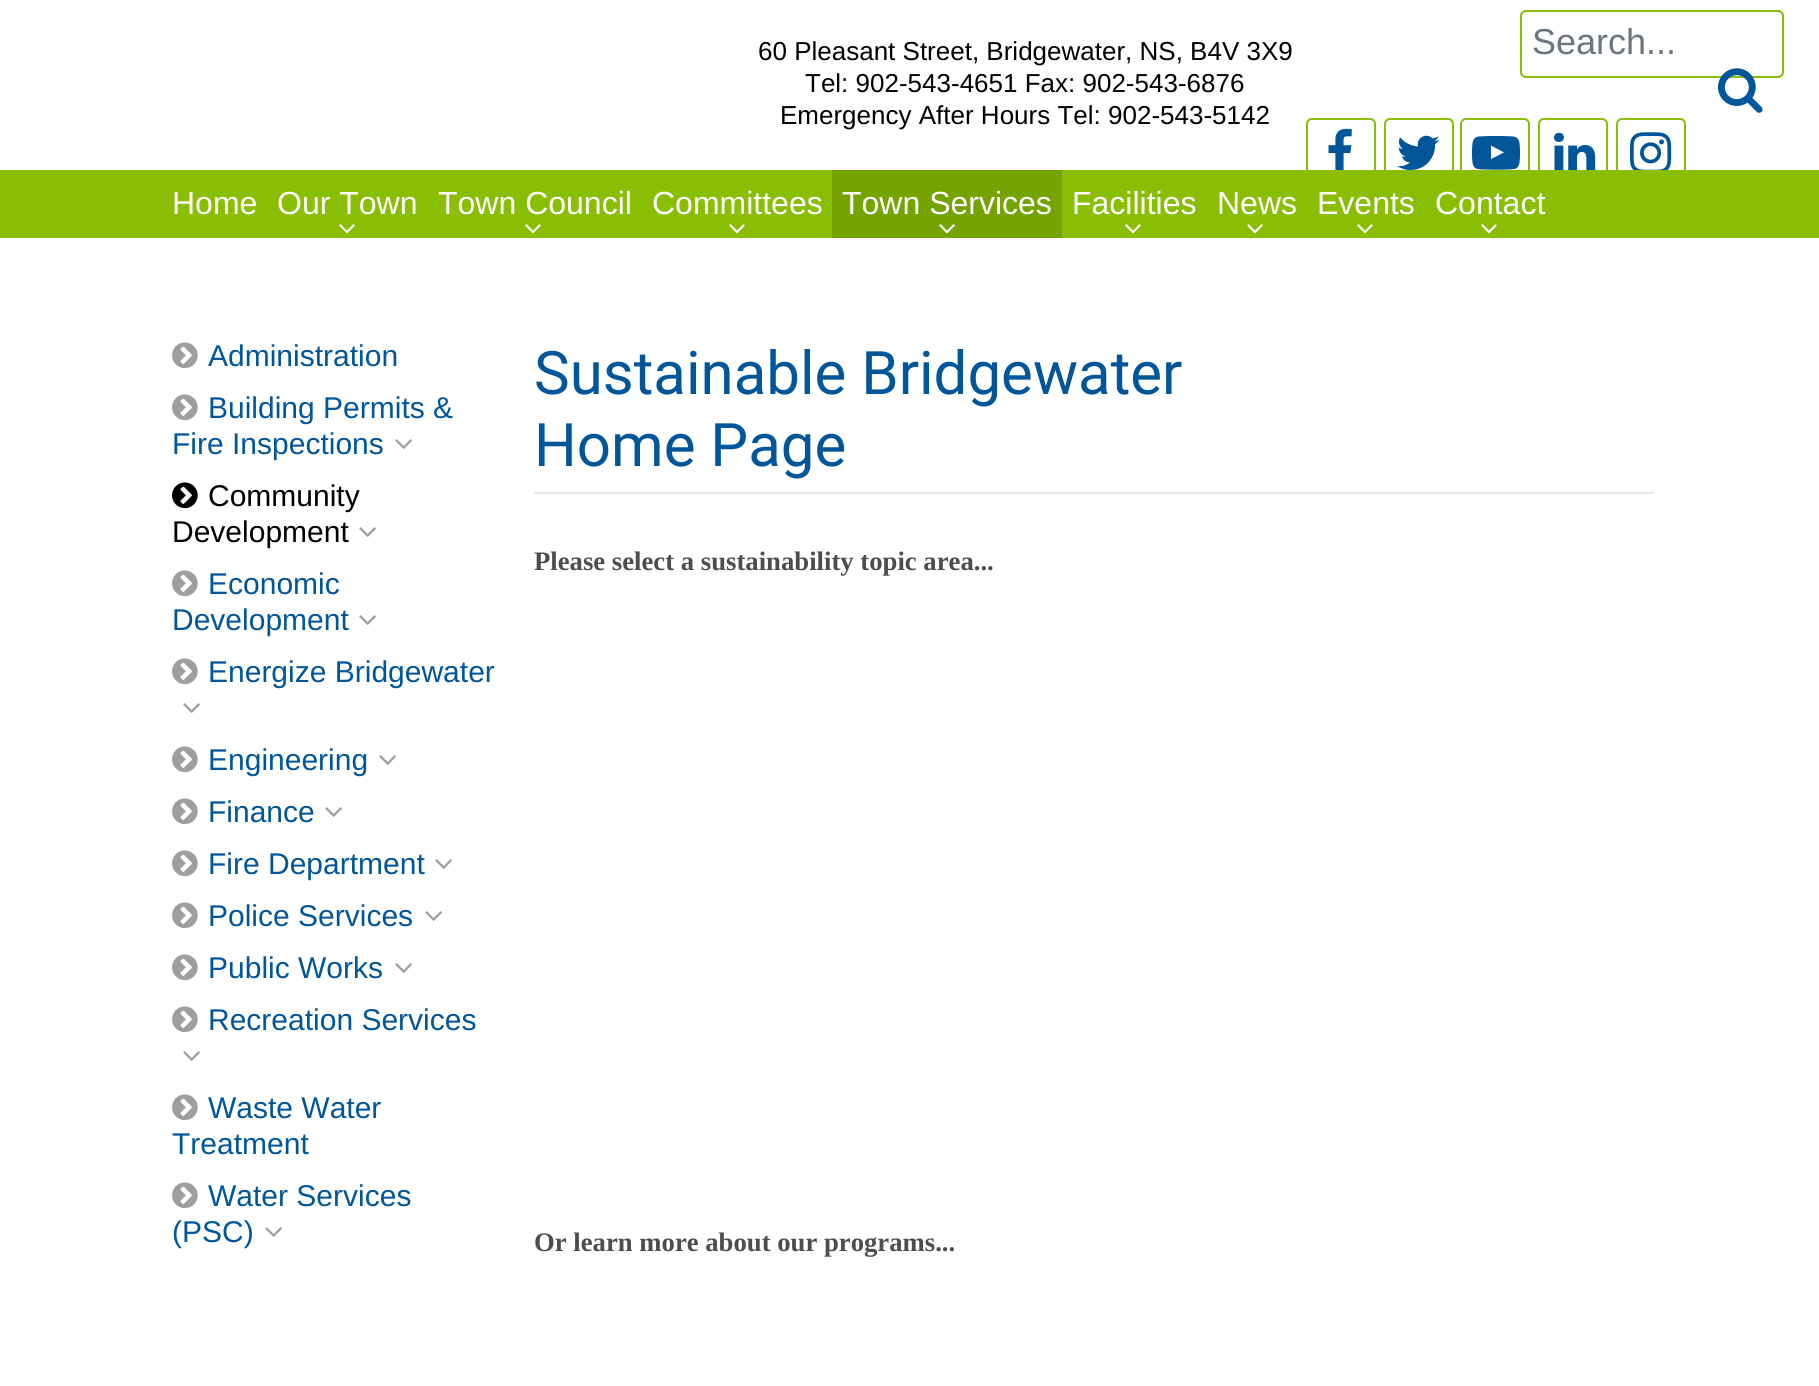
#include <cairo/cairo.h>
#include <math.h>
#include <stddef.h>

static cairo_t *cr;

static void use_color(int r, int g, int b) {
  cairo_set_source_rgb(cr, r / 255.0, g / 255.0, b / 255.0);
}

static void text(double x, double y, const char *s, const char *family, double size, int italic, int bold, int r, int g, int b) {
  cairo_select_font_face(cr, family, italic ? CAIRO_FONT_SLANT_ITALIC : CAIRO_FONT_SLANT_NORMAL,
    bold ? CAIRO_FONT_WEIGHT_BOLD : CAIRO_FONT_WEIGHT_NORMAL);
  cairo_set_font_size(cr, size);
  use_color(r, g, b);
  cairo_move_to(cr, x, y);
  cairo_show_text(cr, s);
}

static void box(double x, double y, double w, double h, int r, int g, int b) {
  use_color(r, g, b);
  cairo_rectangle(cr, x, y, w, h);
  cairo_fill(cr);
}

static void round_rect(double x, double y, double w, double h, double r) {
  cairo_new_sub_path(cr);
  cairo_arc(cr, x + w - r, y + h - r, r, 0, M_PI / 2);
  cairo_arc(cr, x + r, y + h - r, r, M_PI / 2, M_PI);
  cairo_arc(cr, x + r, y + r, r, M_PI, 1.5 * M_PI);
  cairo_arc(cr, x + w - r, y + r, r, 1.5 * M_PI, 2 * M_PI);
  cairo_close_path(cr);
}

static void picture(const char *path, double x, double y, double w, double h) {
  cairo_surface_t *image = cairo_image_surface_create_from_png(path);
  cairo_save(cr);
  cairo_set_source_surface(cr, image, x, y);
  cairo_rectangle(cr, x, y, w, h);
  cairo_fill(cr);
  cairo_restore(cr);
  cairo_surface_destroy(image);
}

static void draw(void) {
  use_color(255, 255, 255);
  cairo_paint(cr);
  round_rect(1521, 11, 262, 66, 5);
  use_color(138, 190, 5);
  cairo_stroke(cr);
  picture("img_01.png", 1718, 68, 45, 45);
  round_rect(1307, 119, 68, 66, 5);
  cairo_stroke(cr);
  picture("img_02.png", 1328, 128, 24, 42);
  round_rect(1385, 119, 68, 66, 5);
  cairo_stroke(cr);
  picture("img_03.png", 1397, 135, 43, 35);
  round_rect(1461, 119, 68, 66, 5);
  cairo_stroke(cr);
  picture("img_04.png", 1472, 136, 48, 34);
  round_rect(1539, 119, 68, 66, 5);
  cairo_stroke(cr);
  picture("img_05.png", 1554, 132, 42, 38);
  round_rect(1617, 119, 68, 66, 5);
  cairo_stroke(cr);
  picture("img_06.png", 1630, 132, 42, 38);
  box(0, 170, 1819, 68, 138, 190, 5);
  picture("img_07.png", 339, 224, 16, 10);
  picture("img_07.png", 525, 224, 16, 10);
  picture("img_07.png", 729, 224, 16, 10);
  box(832, 170, 230, 68, 117, 163, 1);
  picture("img_08.png", 939, 224, 16, 10);
  picture("img_07.png", 1125, 224, 16, 10);
  picture("img_07.png", 1247, 224, 16, 10);
  picture("img_07.png", 1357, 224, 16, 10);
  picture("img_07.png", 1481, 224, 16, 10);
  picture("img_09.png", 172, 342, 26, 27);
  picture("img_09.png", 172, 394, 26, 27);
  picture("img_10.png", 395, 439, 17, 10);
  picture("img_11.png", 172, 482, 26, 27);
  picture("img_10.png", 359, 527, 17, 10);
  picture("img_09.png", 172, 570, 26, 27);
  picture("img_10.png", 359, 615, 17, 10);
  picture("img_09.png", 172, 658, 26, 27);
  picture("img_10.png", 183, 703, 17, 10);
  picture("img_09.png", 172, 746, 26, 27);
  picture("img_10.png", 379, 755, 17, 10);
  picture("img_09.png", 172, 798, 26, 27);
  picture("img_10.png", 325, 807, 17, 10);
  picture("img_09.png", 172, 850, 26, 27);
  picture("img_10.png", 435, 859, 17, 10);
  picture("img_09.png", 172, 902, 26, 27);
  picture("img_10.png", 425, 911, 17, 10);
  picture("img_09.png", 172, 954, 26, 27);
  picture("img_10.png", 395, 963, 17, 10);
  picture("img_09.png", 172, 1006, 26, 27);
  picture("img_10.png", 183, 1051, 17, 10);
  picture("img_09.png", 172, 1094, 26, 27);
  picture("img_09.png", 172, 1182, 26, 27);
  picture("img_10.png", 265, 1227, 17, 10);
  box(534, 492, 1120, 2, 229, 229, 229);
  text(758, 60, "60 Pleasant Street, Bridgewater, NS, B4V 3X9", "Liberation Sans", 26, 0, 0, 0, 0, 0);
  text(805, 92, "Tel: 902-543-4651 Fax: 902-543-6876", "Liberation Sans", 26, 0, 0, 0, 0, 0);
  text(780, 124, "Emergency After Hours Tel: 902-543-5142", "Liberation Sans", 26, 0, 0, 0, 0, 0);
  text(1532, 54, "Search...", "Liberation Sans", 36, 0, 0, 108, 117, 125);
  text(172, 214, "Home", "Liberation Sans", 32, 0, 0, 255, 255, 255);
  text(277, 214, "Our Town", "Liberation Sans", 32, 0, 0, 255, 255, 255);
  text(438, 214, "Town Council", "Liberation Sans", 32, 0, 0, 255, 255, 255);
  text(652, 214, "Committees", "Liberation Sans", 32, 0, 0, 255, 255, 255);
  text(842, 214, "Town Services", "Liberation Sans", 32, 0, 0, 255, 255, 255);
  text(1072, 214, "Facilities", "Liberation Sans", 32, 0, 0, 255, 255, 255);
  text(1217, 214, "News", "Liberation Sans", 32, 0, 0, 255, 255, 255);
  text(1317, 214, "Events", "Liberation Sans", 32, 0, 0, 255, 255, 255);
  text(1435, 214, "Contact", "Liberation Sans", 32, 0, 0, 255, 255, 255);
  text(208, 366, "Administration", "Liberation Sans", 30, 0, 0, 0, 86, 152);
  text(208, 418, "Building Permits &", "Liberation Sans", 30, 0, 0, 0, 86, 152);
  text(172, 454, "Fire Inspections", "Liberation Sans", 30, 0, 0, 0, 86, 152);
  text(208, 506, "Community", "Liberation Sans", 30, 0, 0, 0, 0, 0);
  text(172, 542, "Development", "Liberation Sans", 30, 0, 0, 0, 0, 0);
  text(208, 594, "Economic", "Liberation Sans", 30, 0, 0, 0, 86, 152);
  text(172, 630, "Development", "Liberation Sans", 30, 0, 0, 0, 86, 152);
  text(208, 682, "Energize Bridgewater", "Liberation Sans", 30, 0, 0, 0, 86, 152);
  text(208, 770, "Engineering", "Liberation Sans", 30, 0, 0, 0, 86, 152);
  text(208, 822, "Finance", "Liberation Sans", 30, 0, 0, 0, 86, 152);
  text(208, 874, "Fire Department", "Liberation Sans", 30, 0, 0, 0, 86, 152);
  text(208, 926, "Police Services", "Liberation Sans", 30, 0, 0, 0, 86, 152);
  text(208, 978, "Public Works", "Liberation Sans", 30, 0, 0, 0, 86, 152);
  text(208, 1030, "Recreation Services", "Liberation Sans", 30, 0, 0, 0, 86, 152);
  text(208, 1118, "Waste Water", "Liberation Sans", 30, 0, 0, 0, 86, 152);
  text(172, 1154, "Treatment", "Liberation Sans", 30, 0, 0, 0, 86, 152);
  text(208, 1206, "Water Services", "Liberation Sans", 30, 0, 0, 0, 86, 152);
  text(172, 1242, "(PSC)", "Liberation Sans", 30, 0, 0, 0, 86, 152);
  text(534, 394, "Sustainable Bridgewater", "Roboto", 60, 0, 0, 0, 86, 152);
  text(534, 466, "Home Page", "Roboto", 60, 0, 0, 0, 86, 152);
  text(534, 570, "Please select a sustainability topic area...", "Liberation Serif", 26.7, 0, 1, 77, 77, 77);
  text(534, 1251, "Or learn more about our programs...", "Liberation Serif", 26.7, 0, 1, 77, 77, 77);
}

int main(void) {
  cairo_surface_t *surface = cairo_image_surface_create(CAIRO_FORMAT_RGB24, 1819, 1386);
  cr = cairo_create(surface);
  cairo_font_options_t *options = cairo_font_options_create();
  cairo_font_options_set_hint_metrics(options, CAIRO_HINT_METRICS_OFF);
  cairo_font_options_set_hint_style(options, CAIRO_HINT_STYLE_NONE);
  cairo_set_font_options(cr, options);
  cairo_set_miter_limit(cr, 4);
  draw();
  cairo_surface_write_to_png(surface, "out.png");
  cairo_font_options_destroy(options);
  cairo_destroy(cr);
  cairo_surface_destroy(surface);
  return 0;
}
